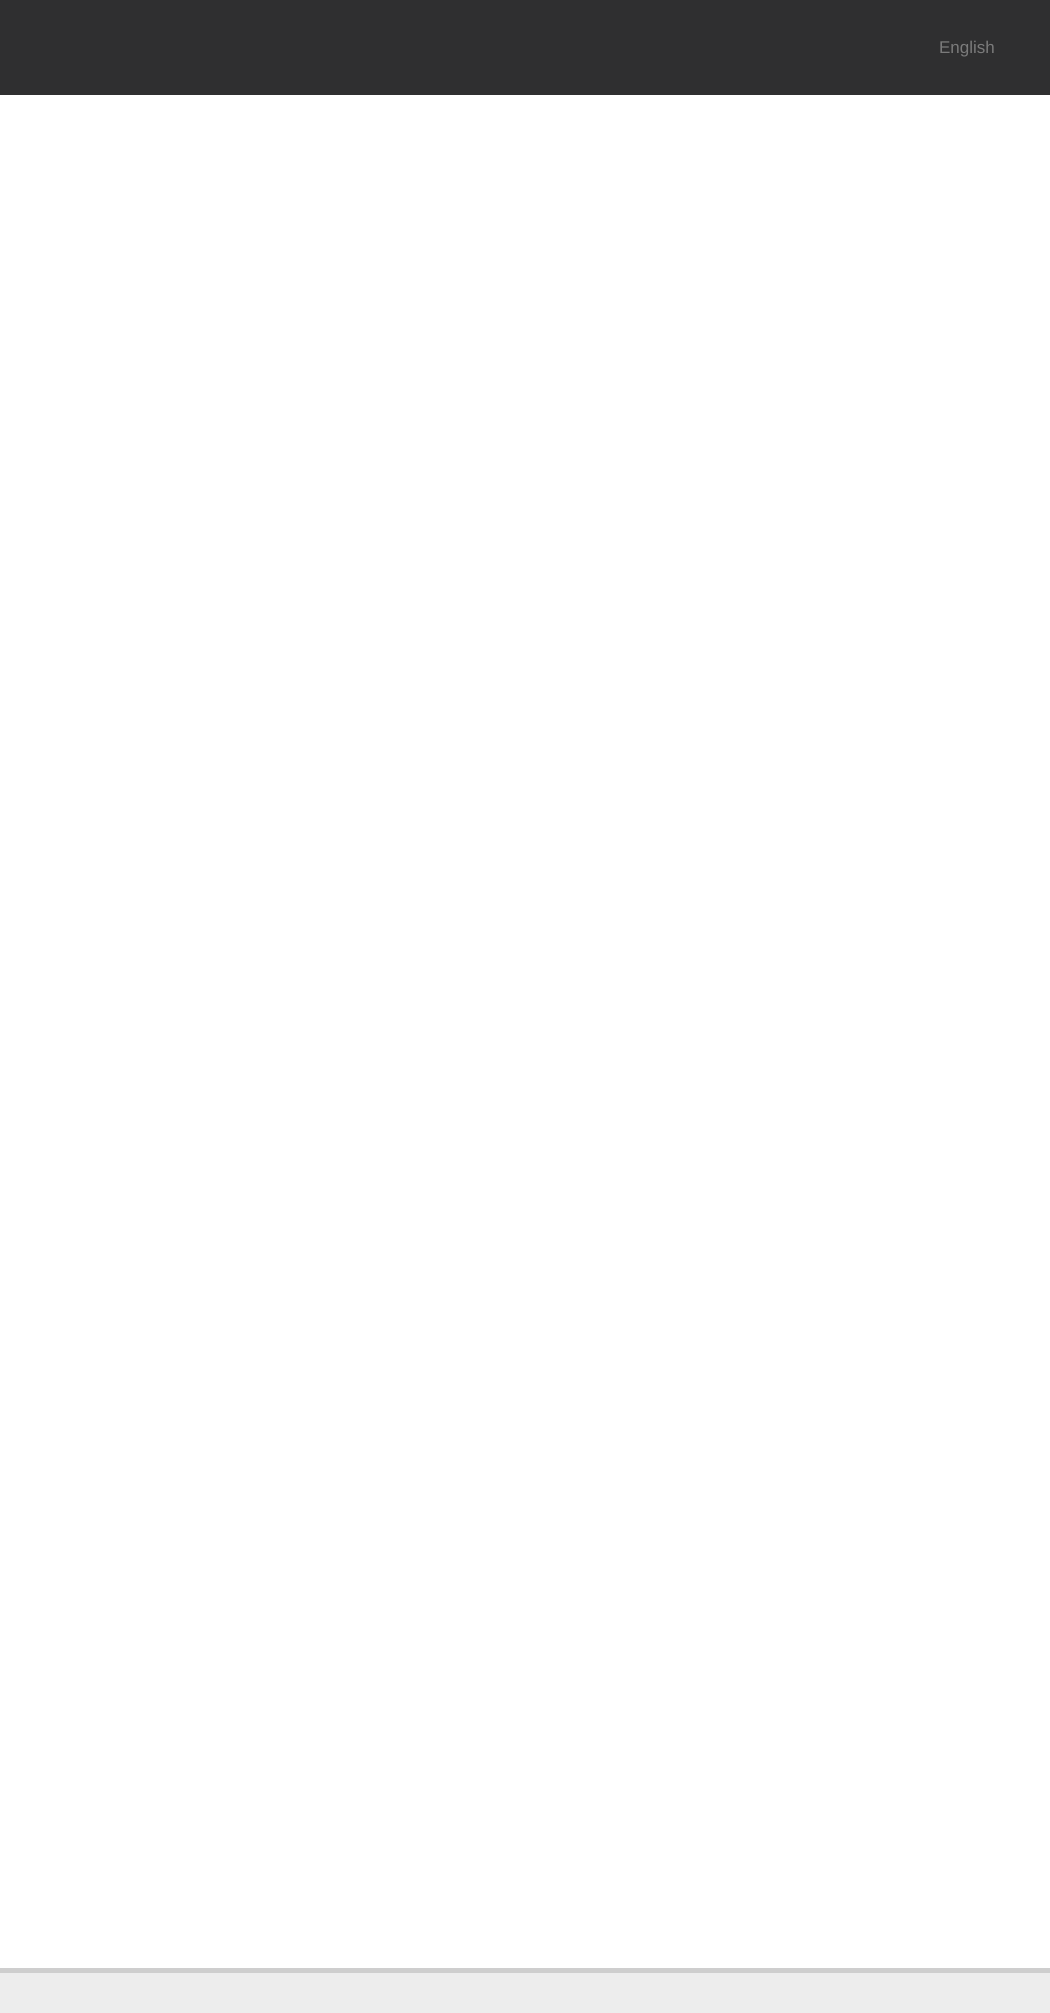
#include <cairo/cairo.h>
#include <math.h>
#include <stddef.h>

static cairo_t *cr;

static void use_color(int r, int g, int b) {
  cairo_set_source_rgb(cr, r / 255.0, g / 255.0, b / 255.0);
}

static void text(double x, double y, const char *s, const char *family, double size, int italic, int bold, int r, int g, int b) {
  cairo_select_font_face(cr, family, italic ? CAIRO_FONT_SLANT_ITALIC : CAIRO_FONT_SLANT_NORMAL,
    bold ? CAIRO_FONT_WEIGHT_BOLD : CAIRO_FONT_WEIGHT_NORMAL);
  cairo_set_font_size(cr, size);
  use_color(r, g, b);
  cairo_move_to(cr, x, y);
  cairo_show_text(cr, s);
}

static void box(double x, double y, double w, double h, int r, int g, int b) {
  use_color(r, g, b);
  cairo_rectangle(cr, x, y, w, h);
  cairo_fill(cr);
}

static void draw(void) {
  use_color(255, 255, 255);
  cairo_paint(cr);
  box(0, 0, 1050, 95, 47, 47, 48);
  box(0, 1973, 1050, 40, 237, 237, 237);
  box(0, 1968, 1050, 5, 206, 206, 206);
  text(939, 53, "English", "Liberation Sans", 17, 0, 0, 122, 122, 122);
}

int main(void) {
  cairo_surface_t *surface = cairo_image_surface_create(CAIRO_FORMAT_RGB24, 1050, 2013);
  cr = cairo_create(surface);
  cairo_font_options_t *options = cairo_font_options_create();
  cairo_font_options_set_hint_metrics(options, CAIRO_HINT_METRICS_OFF);
  cairo_font_options_set_hint_style(options, CAIRO_HINT_STYLE_NONE);
  cairo_set_font_options(cr, options);
  cairo_set_miter_limit(cr, 4);
  draw();
  cairo_surface_write_to_png(surface, "out.png");
  cairo_font_options_destroy(options);
  cairo_destroy(cr);
  cairo_surface_destroy(surface);
  return 0;
}
